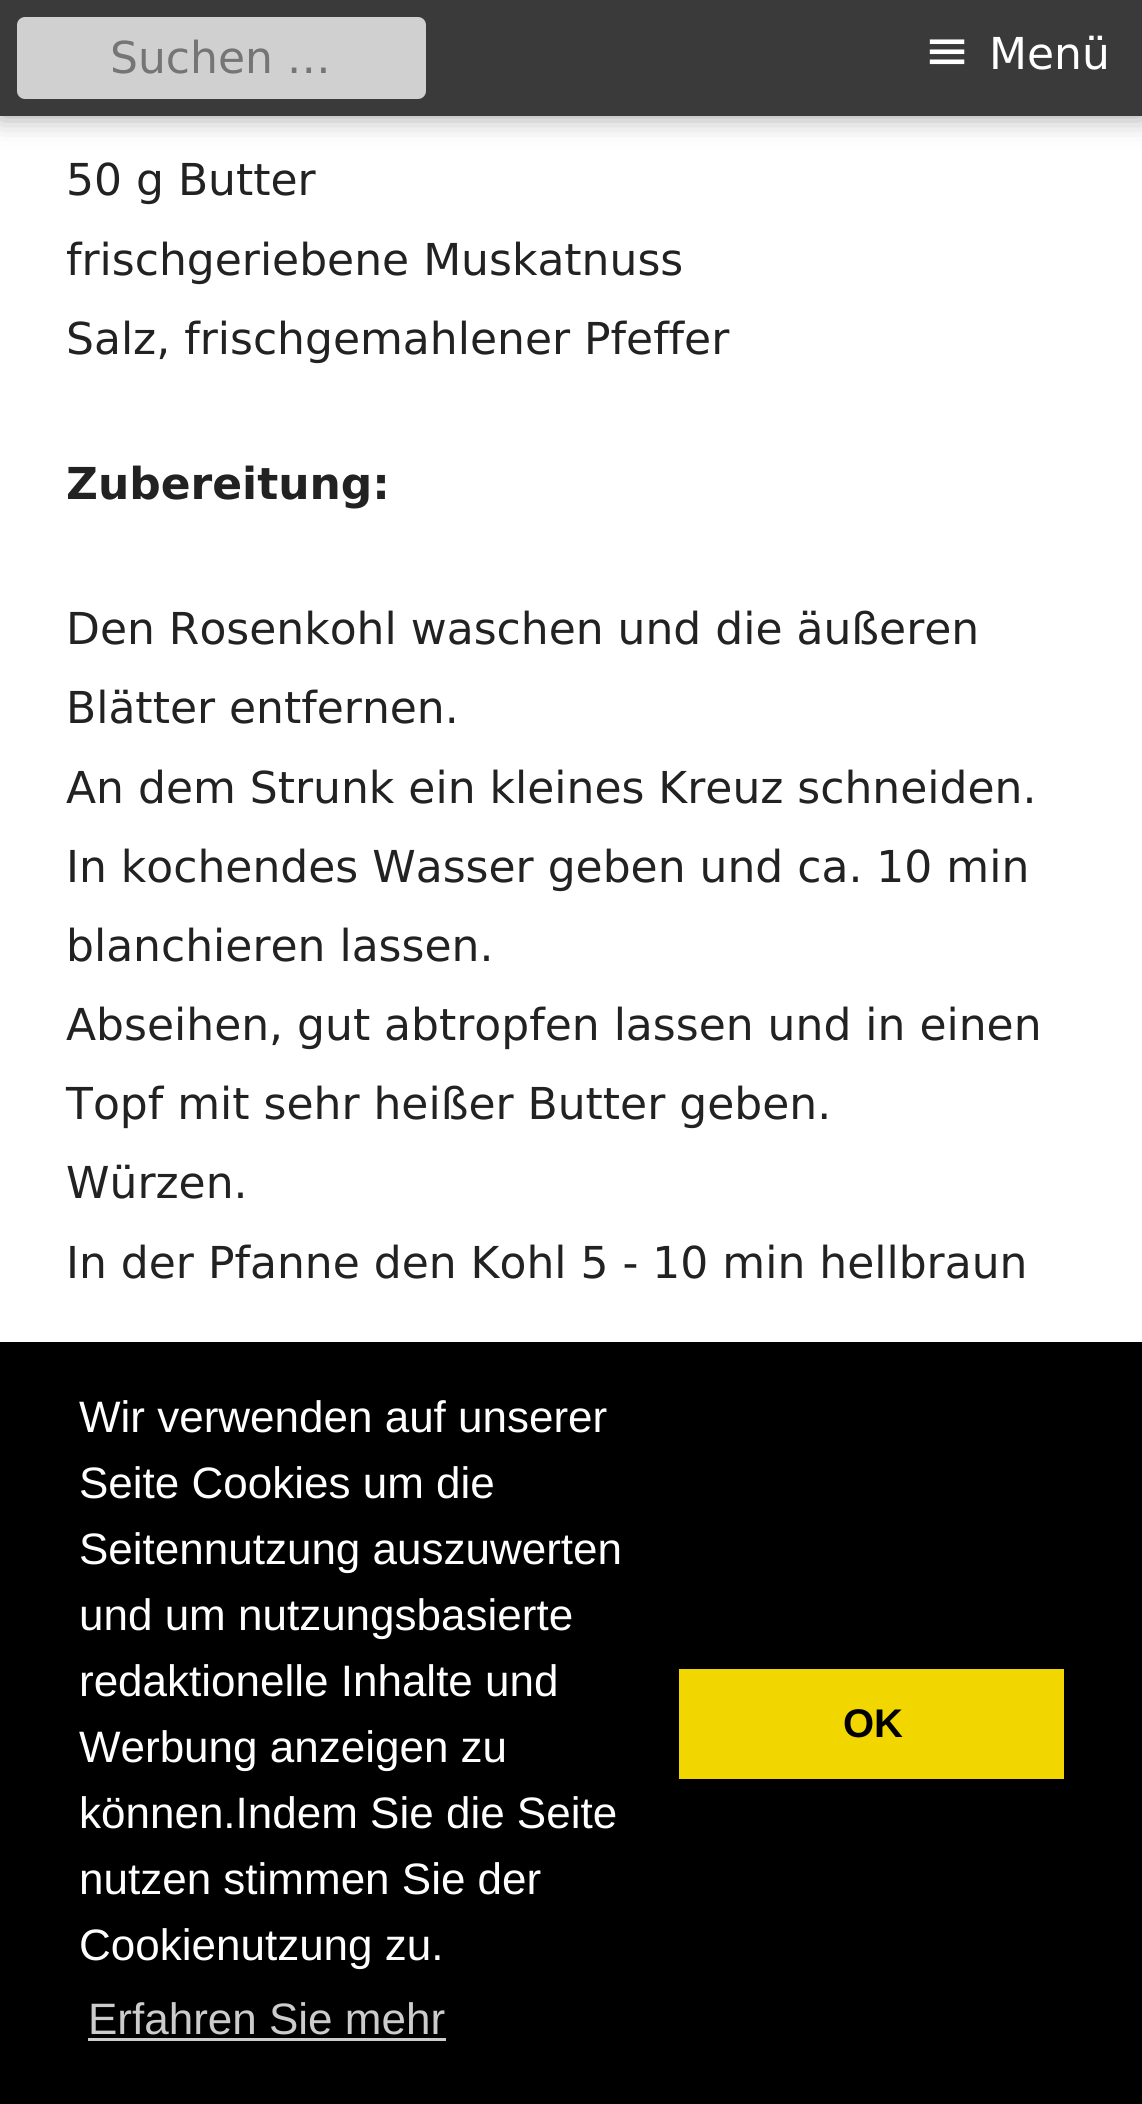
#include <cairo/cairo.h>
#include <math.h>
#include <stddef.h>

static cairo_t *cr;

static void use_color(int r, int g, int b) {
  cairo_set_source_rgb(cr, r / 255.0, g / 255.0, b / 255.0);
}

static void text(double x, double y, const char *s, const char *family, double size, int italic, int bold, int r, int g, int b) {
  cairo_select_font_face(cr, family, italic ? CAIRO_FONT_SLANT_ITALIC : CAIRO_FONT_SLANT_NORMAL,
    bold ? CAIRO_FONT_WEIGHT_BOLD : CAIRO_FONT_WEIGHT_NORMAL);
  cairo_set_font_size(cr, size);
  use_color(r, g, b);
  cairo_move_to(cr, x, y);
  cairo_show_text(cr, s);
}

static void box(double x, double y, double w, double h, int r, int g, int b) {
  use_color(r, g, b);
  cairo_rectangle(cr, x, y, w, h);
  cairo_fill(cr);
}

static void round_rect(double x, double y, double w, double h, double r) {
  cairo_new_sub_path(cr);
  cairo_arc(cr, x + w - r, y + h - r, r, 0, M_PI / 2);
  cairo_arc(cr, x + r, y + h - r, r, M_PI / 2, M_PI);
  cairo_arc(cr, x + r, y + r, r, M_PI, 1.5 * M_PI);
  cairo_arc(cr, x + w - r, y + r, r, 1.5 * M_PI, 2 * M_PI);
  cairo_close_path(cr);
}

static void shadow(double x, double y, double w, double h, double r, double blur, double alpha) {
  cairo_push_group_with_content(cr, CAIRO_CONTENT_ALPHA);
  cairo_set_operator(cr, CAIRO_OPERATOR_SOURCE);
  for (int i = 15; i >= -15 && fmin(w, h) + blur * i / 3 > 0; i -= 2) {
    double e = blur * i / 6;
    cairo_set_source_rgba(cr, 0, 0, 0, alpha * erfc((i - 1) / 8.5) / 2);
    round_rect(x - e, y - e, w + 2 * e, h + 2 * e, fmax(0, fmin(r + e + blur * .6, fmin(w, h) / 2 + e)));
    cairo_fill(cr);
  }
  cairo_pattern_t *soft = cairo_pop_group(cr);
  cairo_mask(cr, soft);
  cairo_pattern_destroy(soft);
}

static void draw(void) {
  use_color(255, 255, 255);
  cairo_paint(cr);
  use_color(0, 0, 0);
  shadow(0, 0, 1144, 116, 0, 14, 0.4);
  box(0, 0, 1142, 116, 58, 58, 58);
  use_color(208, 208, 208);
  round_rect(17, 17, 409, 82, 8);
  cairo_fill(cr);
  box(0, 1342, 1142, 762, 0, 0, 0);
  box(88, 2038, 358, 3, 204, 204, 204);
  box(679, 1669, 385, 110, 241, 214, 0);
  text(110, 73, "Suchen …", "DejaVu Sans", 44, 0, 0, 117, 117, 117);
  text(924, 69, "≡", "DejaVu Sans", 55, 0, 0, 255, 255, 255);
  text(989, 69, "Menü", "DejaVu Sans", 44, 0, 0, 255, 255, 255);
  text(66, 195, "50 g Butter", "DejaVu Sans", 44, 0, 0, 34, 34, 34);
  text(66, 275, "frischgeriebene Muskatnuss", "DejaVu Sans", 44, 0, 0, 34, 34, 34);
  text(66, 354, "Salz, frischgemahlener Pfeffer", "DejaVu Sans", 44, 0, 0, 34, 34, 34);
  text(66, 499, "Zubereitung:", "DejaVu Sans", 44, 0, 1, 34, 34, 34);
  text(66, 644, "Den Rosenkohl waschen und die äußeren", "DejaVu Sans", 44, 0, 0, 34, 34, 34);
  text(66, 723, "Blätter entfernen.", "DejaVu Sans", 44, 0, 0, 34, 34, 34);
  text(66, 803, "An dem Strunk ein kleines Kreuz schneiden.", "DejaVu Sans", 44, 0, 0, 34, 34, 34);
  text(66, 882, "In kochendes Wasser geben und ca. 10 min", "DejaVu Sans", 44, 0, 0, 34, 34, 34);
  text(66, 961, "blanchieren lassen.", "DejaVu Sans", 44, 0, 0, 34, 34, 34);
  text(66, 1040, "Abseihen, gut abtropfen lassen und in einen", "DejaVu Sans", 44, 0, 0, 34, 34, 34);
  text(66, 1119, "Topf mit sehr heißer Butter geben.", "DejaVu Sans", 44, 0, 0, 34, 34, 34);
  text(66, 1198, "Würzen.", "DejaVu Sans", 44, 0, 0, 34, 34, 34);
  text(66, 1278, "In der Pfanne den Kohl 5 - 10 min hellbraun", "DejaVu Sans", 44, 0, 0, 34, 34, 34);
  text(79, 1432, "Wir verwenden auf unserer", "Liberation Sans", 44, 0, 0, 255, 255, 255);
  text(79, 1498, "Seite Cookies um die", "Liberation Sans", 44, 0, 0, 255, 255, 255);
  text(79, 1564, "Seitennutzung auszuwerten", "Liberation Sans", 44, 0, 0, 255, 255, 255);
  text(79, 1630, "und um nutzungsbasierte", "Liberation Sans", 44, 0, 0, 255, 255, 255);
  text(79, 1696, "redaktionelle Inhalte und", "Liberation Sans", 44, 0, 0, 255, 255, 255);
  text(79, 1762, "Werbung anzeigen zu", "Liberation Sans", 44, 0, 0, 255, 255, 255);
  text(79, 1828, "können.Indem Sie die Seite", "Liberation Sans", 44, 0, 0, 255, 255, 255);
  text(79, 1894, "nutzen stimmen Sie der", "Liberation Sans", 44, 0, 0, 255, 255, 255);
  text(79, 1960, "Cookienutzung zu.", "Liberation Sans", 44, 0, 0, 255, 255, 255);
  text(88, 2034, "Erfahren Sie mehr", "Liberation Sans", 44, 0, 0, 204, 204, 204);
  text(843, 1737, "OK", "Liberation Sans", 40, 0, 1, 0, 0, 0);
}

int main(void) {
  cairo_surface_t *surface = cairo_image_surface_create(CAIRO_FORMAT_RGB24, 1142, 2104);
  cr = cairo_create(surface);
  cairo_font_options_t *options = cairo_font_options_create();
  cairo_font_options_set_hint_metrics(options, CAIRO_HINT_METRICS_OFF);
  cairo_font_options_set_hint_style(options, CAIRO_HINT_STYLE_NONE);
  cairo_set_font_options(cr, options);
  cairo_set_miter_limit(cr, 4);
  draw();
  cairo_surface_write_to_png(surface, "out.png");
  cairo_font_options_destroy(options);
  cairo_destroy(cr);
  cairo_surface_destroy(surface);
  return 0;
}
